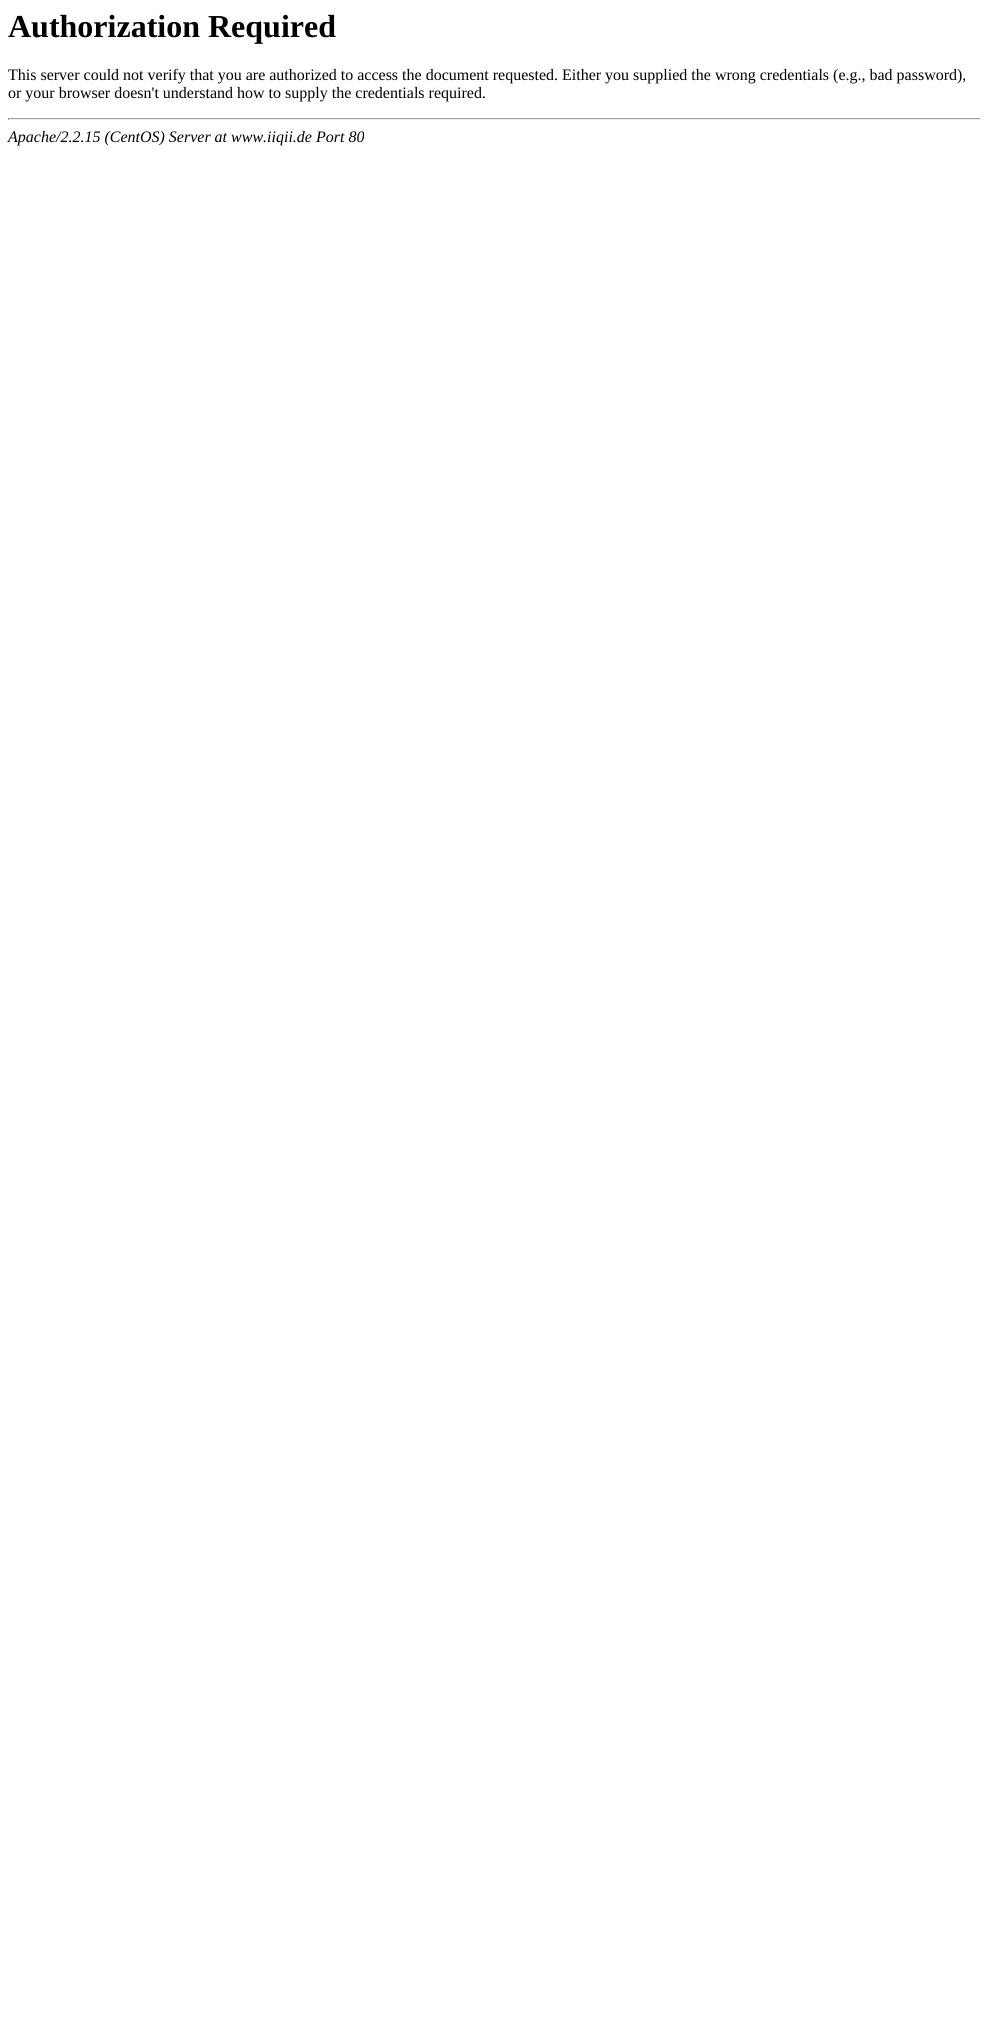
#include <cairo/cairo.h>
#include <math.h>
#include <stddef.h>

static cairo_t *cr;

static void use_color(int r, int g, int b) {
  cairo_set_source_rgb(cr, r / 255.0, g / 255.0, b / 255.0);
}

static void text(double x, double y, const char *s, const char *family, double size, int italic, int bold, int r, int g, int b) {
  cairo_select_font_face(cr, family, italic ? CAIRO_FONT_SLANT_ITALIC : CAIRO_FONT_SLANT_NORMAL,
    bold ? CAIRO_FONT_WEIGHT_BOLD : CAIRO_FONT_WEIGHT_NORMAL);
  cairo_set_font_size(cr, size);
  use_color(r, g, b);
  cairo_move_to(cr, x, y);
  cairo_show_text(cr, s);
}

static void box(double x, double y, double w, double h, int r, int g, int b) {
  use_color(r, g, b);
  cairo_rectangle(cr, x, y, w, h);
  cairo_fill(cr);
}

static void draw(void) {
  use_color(255, 255, 255);
  cairo_paint(cr);
  box(8, 118, 973, 1, 159, 159, 159);
  box(980, 118, 1, 2, 238, 238, 238);
  box(8, 119, 973, 1, 238, 238, 238);
  box(8, 118, 1, 2, 159, 159, 159);
  text(8, 37, "Authorization Required", "Liberation Serif", 32, 0, 1, 0, 0, 0);
  text(8, 80, "This server could not verify that you are authorized to access the document requested. Either you supplied the wrong credentials (e.g., bad password),", "Liberation Serif", 16, 0, 0, 0, 0, 0);
  text(8, 98, "or your browser doesn't understand how to supply the credentials required.", "Liberation Serif", 16, 0, 0, 0, 0, 0);
  text(8, 142, "Apache/2.2.15 (CentOS) Server at www.iiqii.de Port 80", "Liberation Serif", 16, 1, 0, 0, 0, 0);
}

int main(void) {
  cairo_surface_t *surface = cairo_image_surface_create(CAIRO_FORMAT_RGB24, 989, 2037);
  cr = cairo_create(surface);
  cairo_font_options_t *options = cairo_font_options_create();
  cairo_font_options_set_hint_metrics(options, CAIRO_HINT_METRICS_OFF);
  cairo_font_options_set_hint_style(options, CAIRO_HINT_STYLE_NONE);
  cairo_set_font_options(cr, options);
  cairo_set_miter_limit(cr, 4);
  draw();
  cairo_surface_write_to_png(surface, "out.png");
  cairo_font_options_destroy(options);
  cairo_destroy(cr);
  cairo_surface_destroy(surface);
  return 0;
}
